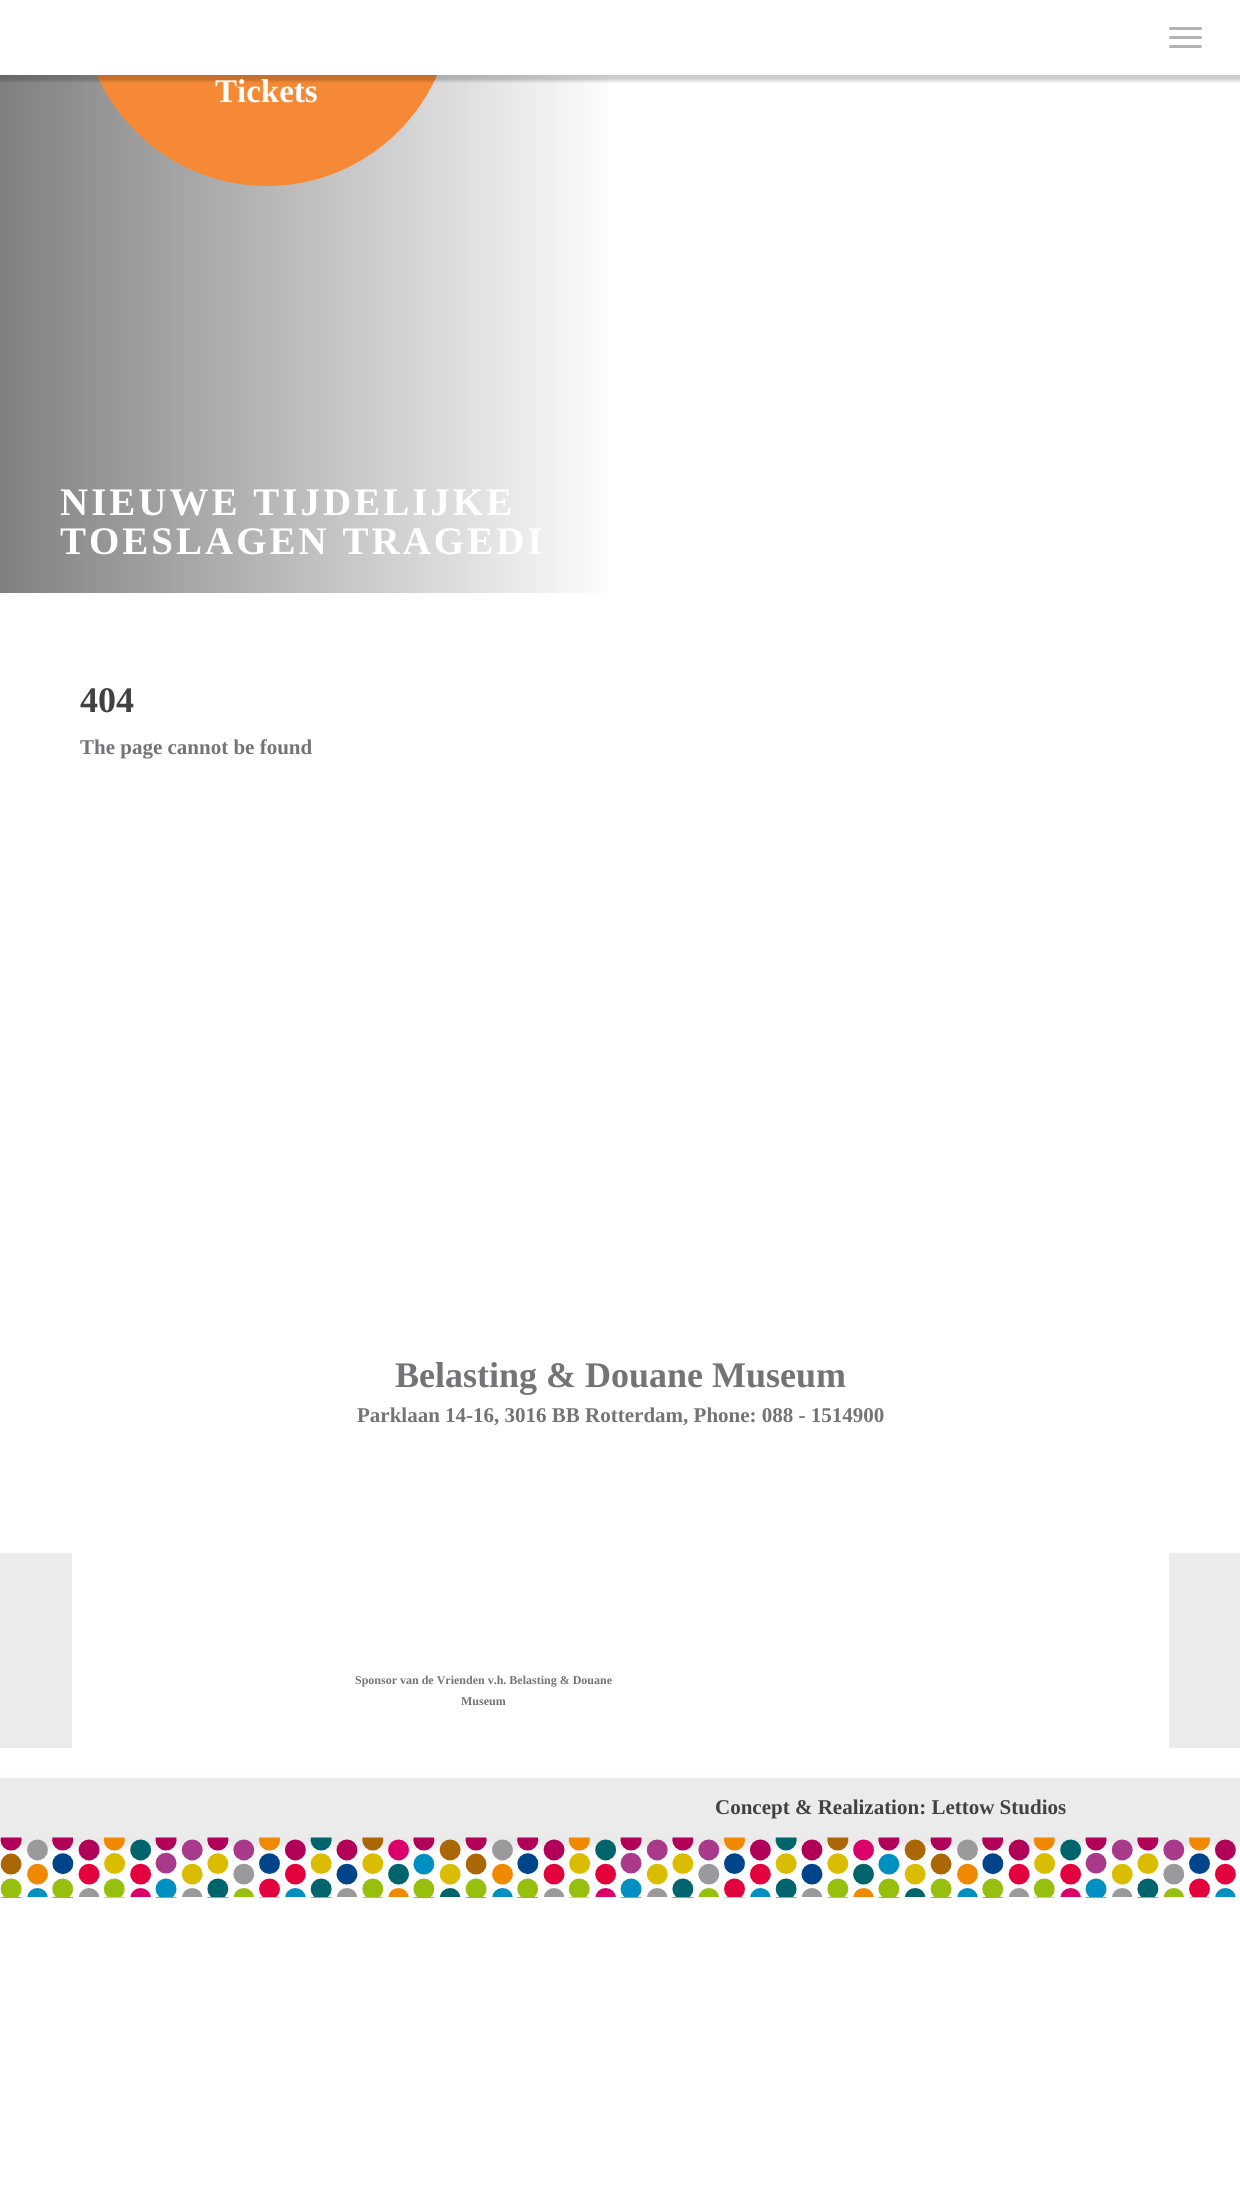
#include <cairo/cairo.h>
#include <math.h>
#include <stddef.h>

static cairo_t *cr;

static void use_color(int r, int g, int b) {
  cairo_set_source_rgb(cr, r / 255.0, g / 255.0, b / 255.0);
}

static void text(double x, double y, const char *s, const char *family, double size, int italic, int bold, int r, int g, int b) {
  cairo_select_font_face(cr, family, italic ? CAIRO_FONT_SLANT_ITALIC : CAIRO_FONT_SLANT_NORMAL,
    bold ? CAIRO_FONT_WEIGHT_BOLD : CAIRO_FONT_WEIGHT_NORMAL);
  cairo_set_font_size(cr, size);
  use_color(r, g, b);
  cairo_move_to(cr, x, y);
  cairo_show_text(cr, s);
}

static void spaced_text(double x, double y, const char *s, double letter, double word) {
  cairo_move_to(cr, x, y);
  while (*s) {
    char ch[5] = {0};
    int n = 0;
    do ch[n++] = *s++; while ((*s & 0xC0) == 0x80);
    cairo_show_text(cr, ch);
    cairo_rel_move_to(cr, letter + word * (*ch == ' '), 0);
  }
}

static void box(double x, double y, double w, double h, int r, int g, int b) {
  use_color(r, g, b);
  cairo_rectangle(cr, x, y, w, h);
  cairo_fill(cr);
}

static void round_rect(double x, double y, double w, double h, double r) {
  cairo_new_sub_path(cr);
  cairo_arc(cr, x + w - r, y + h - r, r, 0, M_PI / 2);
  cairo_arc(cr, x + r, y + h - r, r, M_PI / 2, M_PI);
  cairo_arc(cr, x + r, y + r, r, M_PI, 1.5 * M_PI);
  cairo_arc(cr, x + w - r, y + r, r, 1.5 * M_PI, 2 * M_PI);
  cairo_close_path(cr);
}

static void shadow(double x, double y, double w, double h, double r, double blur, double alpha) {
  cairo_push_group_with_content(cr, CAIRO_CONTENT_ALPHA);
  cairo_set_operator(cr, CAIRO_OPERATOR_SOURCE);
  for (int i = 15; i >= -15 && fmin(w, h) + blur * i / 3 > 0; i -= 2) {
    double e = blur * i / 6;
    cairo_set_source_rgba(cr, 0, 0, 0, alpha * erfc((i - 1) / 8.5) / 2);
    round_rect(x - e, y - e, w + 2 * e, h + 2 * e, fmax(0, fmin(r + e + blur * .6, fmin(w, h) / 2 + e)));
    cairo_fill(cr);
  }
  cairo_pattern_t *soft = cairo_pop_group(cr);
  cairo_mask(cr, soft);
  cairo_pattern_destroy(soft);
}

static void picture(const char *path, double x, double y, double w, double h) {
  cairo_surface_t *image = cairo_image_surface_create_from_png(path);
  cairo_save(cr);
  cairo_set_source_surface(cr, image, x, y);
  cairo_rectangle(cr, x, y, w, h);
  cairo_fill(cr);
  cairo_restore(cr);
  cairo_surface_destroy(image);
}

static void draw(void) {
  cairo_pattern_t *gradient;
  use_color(255, 255, 255);
  cairo_paint(cr);
  gradient = cairo_pattern_create_linear(0, 334, 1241, 334);
  cairo_pattern_add_color_stop_rgba(gradient, 0, 0.502, 0.502, 0.502, 1);
  cairo_pattern_add_color_stop_rgba(gradient, 0.5, 1, 1, 1, 1);
  cairo_set_source(cr, gradient);
  cairo_pattern_destroy(gradient);
  cairo_rectangle(cr, 0, 75, 608, 518);
  cairo_fill(cr);
  use_color(246, 137, 54);
  cairo_new_path(cr);
  cairo_move_to(cr, 81, 0);
  cairo_line_to(cr, 453, 0);
  cairo_curve_to(cr, 453, 102.5, 369.5, 186, 267, 186);
  cairo_curve_to(cr, 164.5, 186, 81, 102.5, 81, 0);
  cairo_close_path(cr);
  cairo_fill(cr);
  use_color(0, 0, 0);
  shadow(-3, 0, 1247, 81, 0, 1.5, 0.2);
  box(0, 0, 1240, 75, 255, 255, 255);
  use_color(178, 178, 178);
  round_rect(1169, 27, 33, 3, 1.5);
  cairo_fill(cr);
  round_rect(1169, 36, 33, 3, 1.5);
  cairo_fill(cr);
  round_rect(1169, 45, 33, 3, 1.5);
  cairo_fill(cr);
  box(0, 1553, 72, 195, 235, 235, 235);
  box(1169, 1553, 71, 195, 235, 235, 235);
  use_color(143, 143, 148);
  shadow(-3, 1782, 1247, 66, 0, 4, 0.2);
  box(0, 1778, 1240, 60, 235, 235, 235);
  picture("img_01.png", 0, 1837, 1236, 61);
  text(215, 102, "Tickets", "Liberation Serif", 33, 0, 1, 255, 255, 255);
  cairo_set_font_size(cr, 39);
  spaced_text(60, 515, "NIEUWE TIJDELIJKE", 3, 0);
  spaced_text(60, 554, "TOESLAGEN TRAGEDI", 3, 0);
  text(80, 712, "404", "Liberation Serif", 36, 0, 1, 66, 66, 66);
  text(80, 754, "The page cannot be found", "Liberation Serif", 21, 0, 1, 115, 115, 120);
  text(395, 1387, "Belasting & Douane Museum", "Liberation Serif", 36, 0, 1, 115, 115, 120);
  text(357, 1422, "Parklaan 14-16, 3016 BB Rotterdam, Phone: 088 - 1514900", "Liberation Serif", 21, 0, 1, 115, 115, 120);
  text(355, 1684, "Sponsor van de Vrienden v.h. Belasting & Douane", "Liberation Serif", 12, 0, 1, 115, 115, 120);
  text(461, 1705, "Museum", "Liberation Serif", 12, 0, 1, 115, 115, 120);
  text(715, 1814, "Concept & Realization: Lettow Studios", "Liberation Serif", 21, 0, 1, 66, 66, 66);
}

int main(void) {
  cairo_surface_t *surface = cairo_image_surface_create(CAIRO_FORMAT_RGB24, 1240, 2208);
  cr = cairo_create(surface);
  cairo_font_options_t *options = cairo_font_options_create();
  cairo_font_options_set_hint_metrics(options, CAIRO_HINT_METRICS_OFF);
  cairo_font_options_set_hint_style(options, CAIRO_HINT_STYLE_NONE);
  cairo_set_font_options(cr, options);
  cairo_set_miter_limit(cr, 4);
  draw();
  cairo_surface_write_to_png(surface, "out.png");
  cairo_font_options_destroy(options);
  cairo_destroy(cr);
  cairo_surface_destroy(surface);
  return 0;
}
